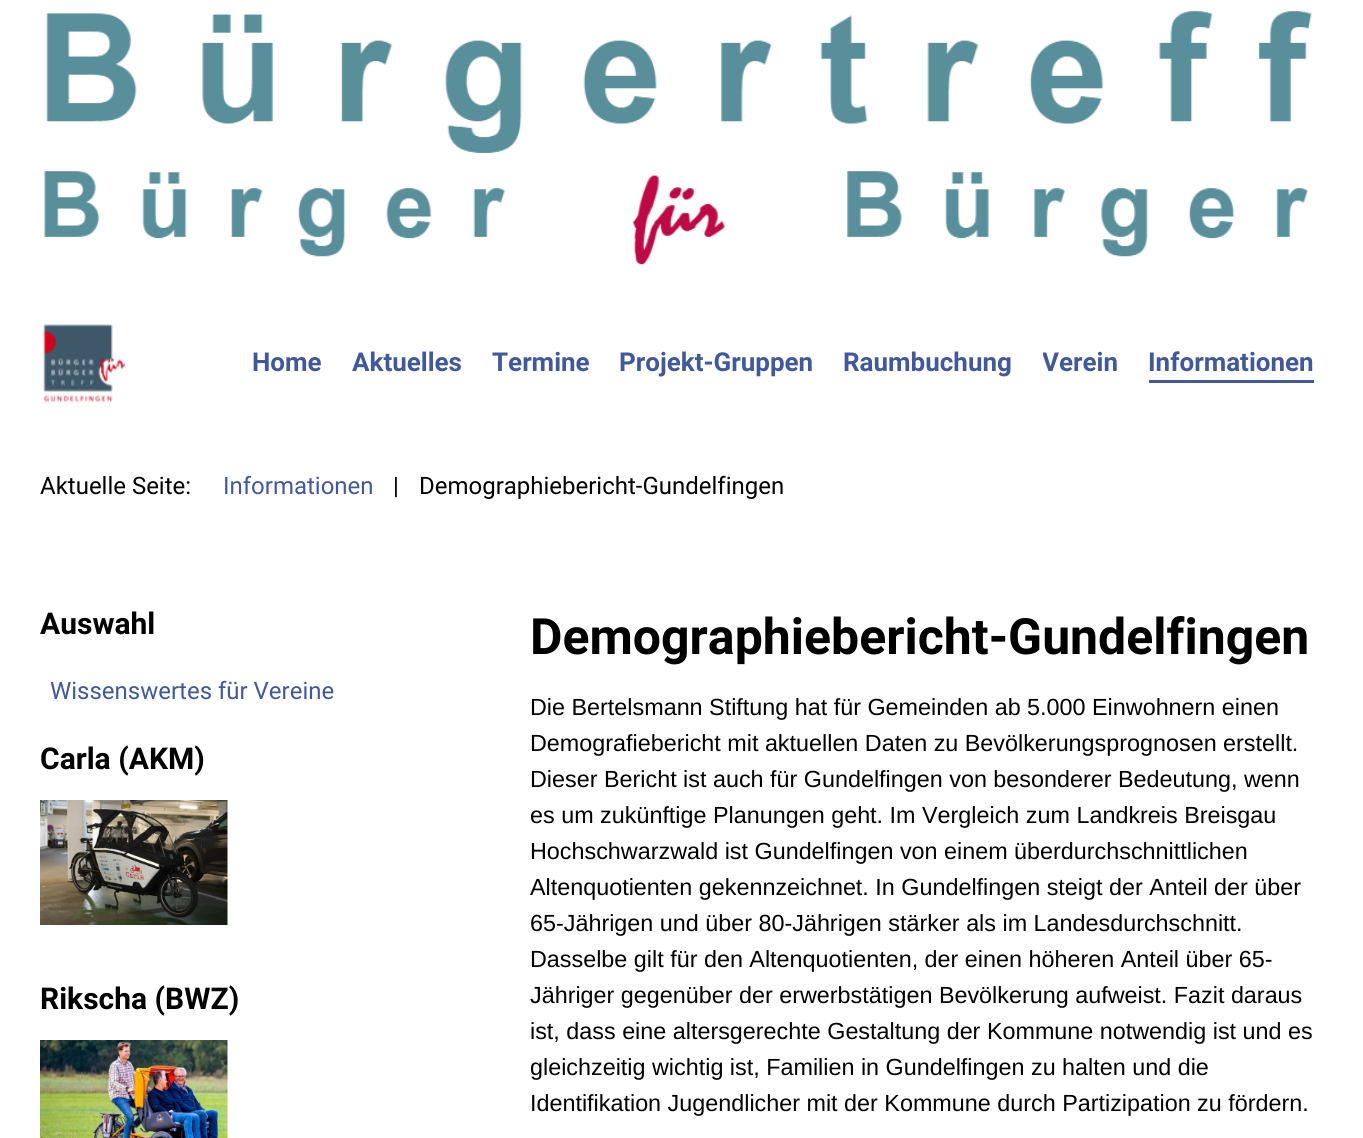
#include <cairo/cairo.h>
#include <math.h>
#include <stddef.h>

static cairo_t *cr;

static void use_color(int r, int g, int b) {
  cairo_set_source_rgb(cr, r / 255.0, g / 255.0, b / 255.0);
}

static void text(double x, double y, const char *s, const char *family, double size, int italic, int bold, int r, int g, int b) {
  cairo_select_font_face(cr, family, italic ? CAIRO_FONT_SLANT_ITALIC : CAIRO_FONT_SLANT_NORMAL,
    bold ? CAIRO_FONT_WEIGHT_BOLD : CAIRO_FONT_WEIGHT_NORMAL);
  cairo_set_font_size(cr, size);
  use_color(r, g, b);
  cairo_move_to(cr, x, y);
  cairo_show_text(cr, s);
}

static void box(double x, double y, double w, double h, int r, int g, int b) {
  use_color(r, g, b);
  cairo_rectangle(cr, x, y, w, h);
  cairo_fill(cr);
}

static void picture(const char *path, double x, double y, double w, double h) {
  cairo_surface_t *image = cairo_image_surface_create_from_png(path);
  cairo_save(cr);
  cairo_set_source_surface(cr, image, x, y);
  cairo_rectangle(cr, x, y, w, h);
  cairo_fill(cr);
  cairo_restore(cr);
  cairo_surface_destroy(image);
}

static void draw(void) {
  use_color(255, 255, 255);
  cairo_paint(cr);
  picture("img_01.png", 43, 11, 1269, 254);
  picture("img_02.png", 43, 324, 83, 78);
  box(1149, 380, 165, 3, 65, 89, 154);
  picture("img_03.png", 40, 800, 188, 125);
  picture("img_04.png", 40, 1040, 188, 98);
  text(252, 371, "Home", "Roboto", 26, 0, 1, 65, 89, 154);
  text(352, 371, "Aktuelles", "Roboto", 26, 0, 1, 65, 89, 154);
  text(492, 371, "Termine", "Roboto", 26, 0, 1, 65, 89, 154);
  text(619, 371, "Projekt-Gruppen", "Roboto", 26, 0, 1, 65, 89, 154);
  text(843, 371, "Raumbuchung", "Roboto", 26, 0, 1, 65, 89, 154);
  cairo_save(cr);
  cairo_rectangle(cr, 1043, 338, 76, 51);
  cairo_clip(cr);
  text(1042, 371, "Verein", "Roboto", 26, 0, 1, 65, 89, 154);
  cairo_restore(cr);
  text(1148, 371, "Informationen", "Roboto", 26, 0, 1, 65, 89, 154);
  text(40, 494, "Aktuelle Seite:", "Roboto", 24, 0, 0, 0, 0, 0);
  text(223, 494, "Informationen", "Roboto", 24, 0, 0, 65, 89, 154);
  text(393, 494, "|", "Roboto", 24, 0, 0, 0, 0, 0);
  text(419, 494, "Demographiebericht-Gundelfingen", "Roboto", 24, 0, 0, 0, 0, 0);
  text(40, 634, "Auswahl", "Roboto", 30, 0, 1, 0, 0, 0);
  text(50, 699, "Wissenswertes für Vereine", "Roboto", 24, 0, 0, 65, 89, 154);
  text(40, 769, "Carla (AKM)", "Roboto", 30, 0, 1, 0, 0, 0);
  text(40, 1009, "Rikscha (BWZ)", "Roboto", 30, 0, 1, 0, 0, 0);
  text(530, 654, "Demographiebericht-Gundelfingen", "Roboto", 50, 0, 1, 0, 0, 0);
  text(530, 715, "Die Bertelsmann Stiftung hat für Gemeinden ab 5.000 Einwohnern einen", "Liberation Sans", 23.35, 0, 0, 0, 0, 0);
  text(530, 751, "Demografiebericht mit aktuellen Daten zu Bevölkerungsprognosen erstellt.", "Liberation Sans", 23.35, 0, 0, 0, 0, 0);
  text(530, 787, "Dieser Bericht ist auch für Gundelfingen von besonderer Bedeutung, wenn", "Liberation Sans", 23.35, 0, 0, 0, 0, 0);
  text(530, 823, "es um zukünftige Planungen geht. Im Vergleich zum Landkreis Breisgau", "Liberation Sans", 23.35, 0, 0, 0, 0, 0);
  text(530, 859, "Hochschwarzwald ist Gundelfingen von einem überdurchschnittlichen", "Liberation Sans", 23.35, 0, 0, 0, 0, 0);
  text(530, 895, "Altenquotienten gekennzeichnet. In Gundelfingen steigt der Anteil der über", "Liberation Sans", 23.35, 0, 0, 0, 0, 0);
  text(530, 931, "65-Jährigen und über 80-Jährigen stärker als im Landesdurchschnitt.", "Liberation Sans", 23.35, 0, 0, 0, 0, 0);
  text(530, 967, "Dasselbe gilt für den Altenquotienten, der einen höheren Anteil über 65-", "Liberation Sans", 23.35, 0, 0, 0, 0, 0);
  text(530, 1003, "Jähriger gegenüber der erwerbstätigen Bevölkerung aufweist. Fazit daraus", "Liberation Sans", 23.35, 0, 0, 0, 0, 0);
  text(530, 1039, "ist, dass eine altersgerechte Gestaltung der Kommune notwendig ist und es", "Liberation Sans", 23.35, 0, 0, 0, 0, 0);
  text(530, 1075, "gleichzeitig wichtig ist, Familien in Gundelfingen zu halten und die", "Liberation Sans", 23.35, 0, 0, 0, 0, 0);
  text(530, 1111, "Identifikation Jugendlicher mit der Kommune durch Partizipation zu fördern.", "Liberation Sans", 23.35, 0, 0, 0, 0, 0);
}

int main(void) {
  cairo_surface_t *surface = cairo_image_surface_create(CAIRO_FORMAT_RGB24, 1363, 1138);
  cr = cairo_create(surface);
  cairo_font_options_t *options = cairo_font_options_create();
  cairo_font_options_set_hint_metrics(options, CAIRO_HINT_METRICS_OFF);
  cairo_font_options_set_hint_style(options, CAIRO_HINT_STYLE_NONE);
  cairo_set_font_options(cr, options);
  cairo_set_miter_limit(cr, 4);
  draw();
  cairo_surface_write_to_png(surface, "out.png");
  cairo_font_options_destroy(options);
  cairo_destroy(cr);
  cairo_surface_destroy(surface);
  return 0;
}
